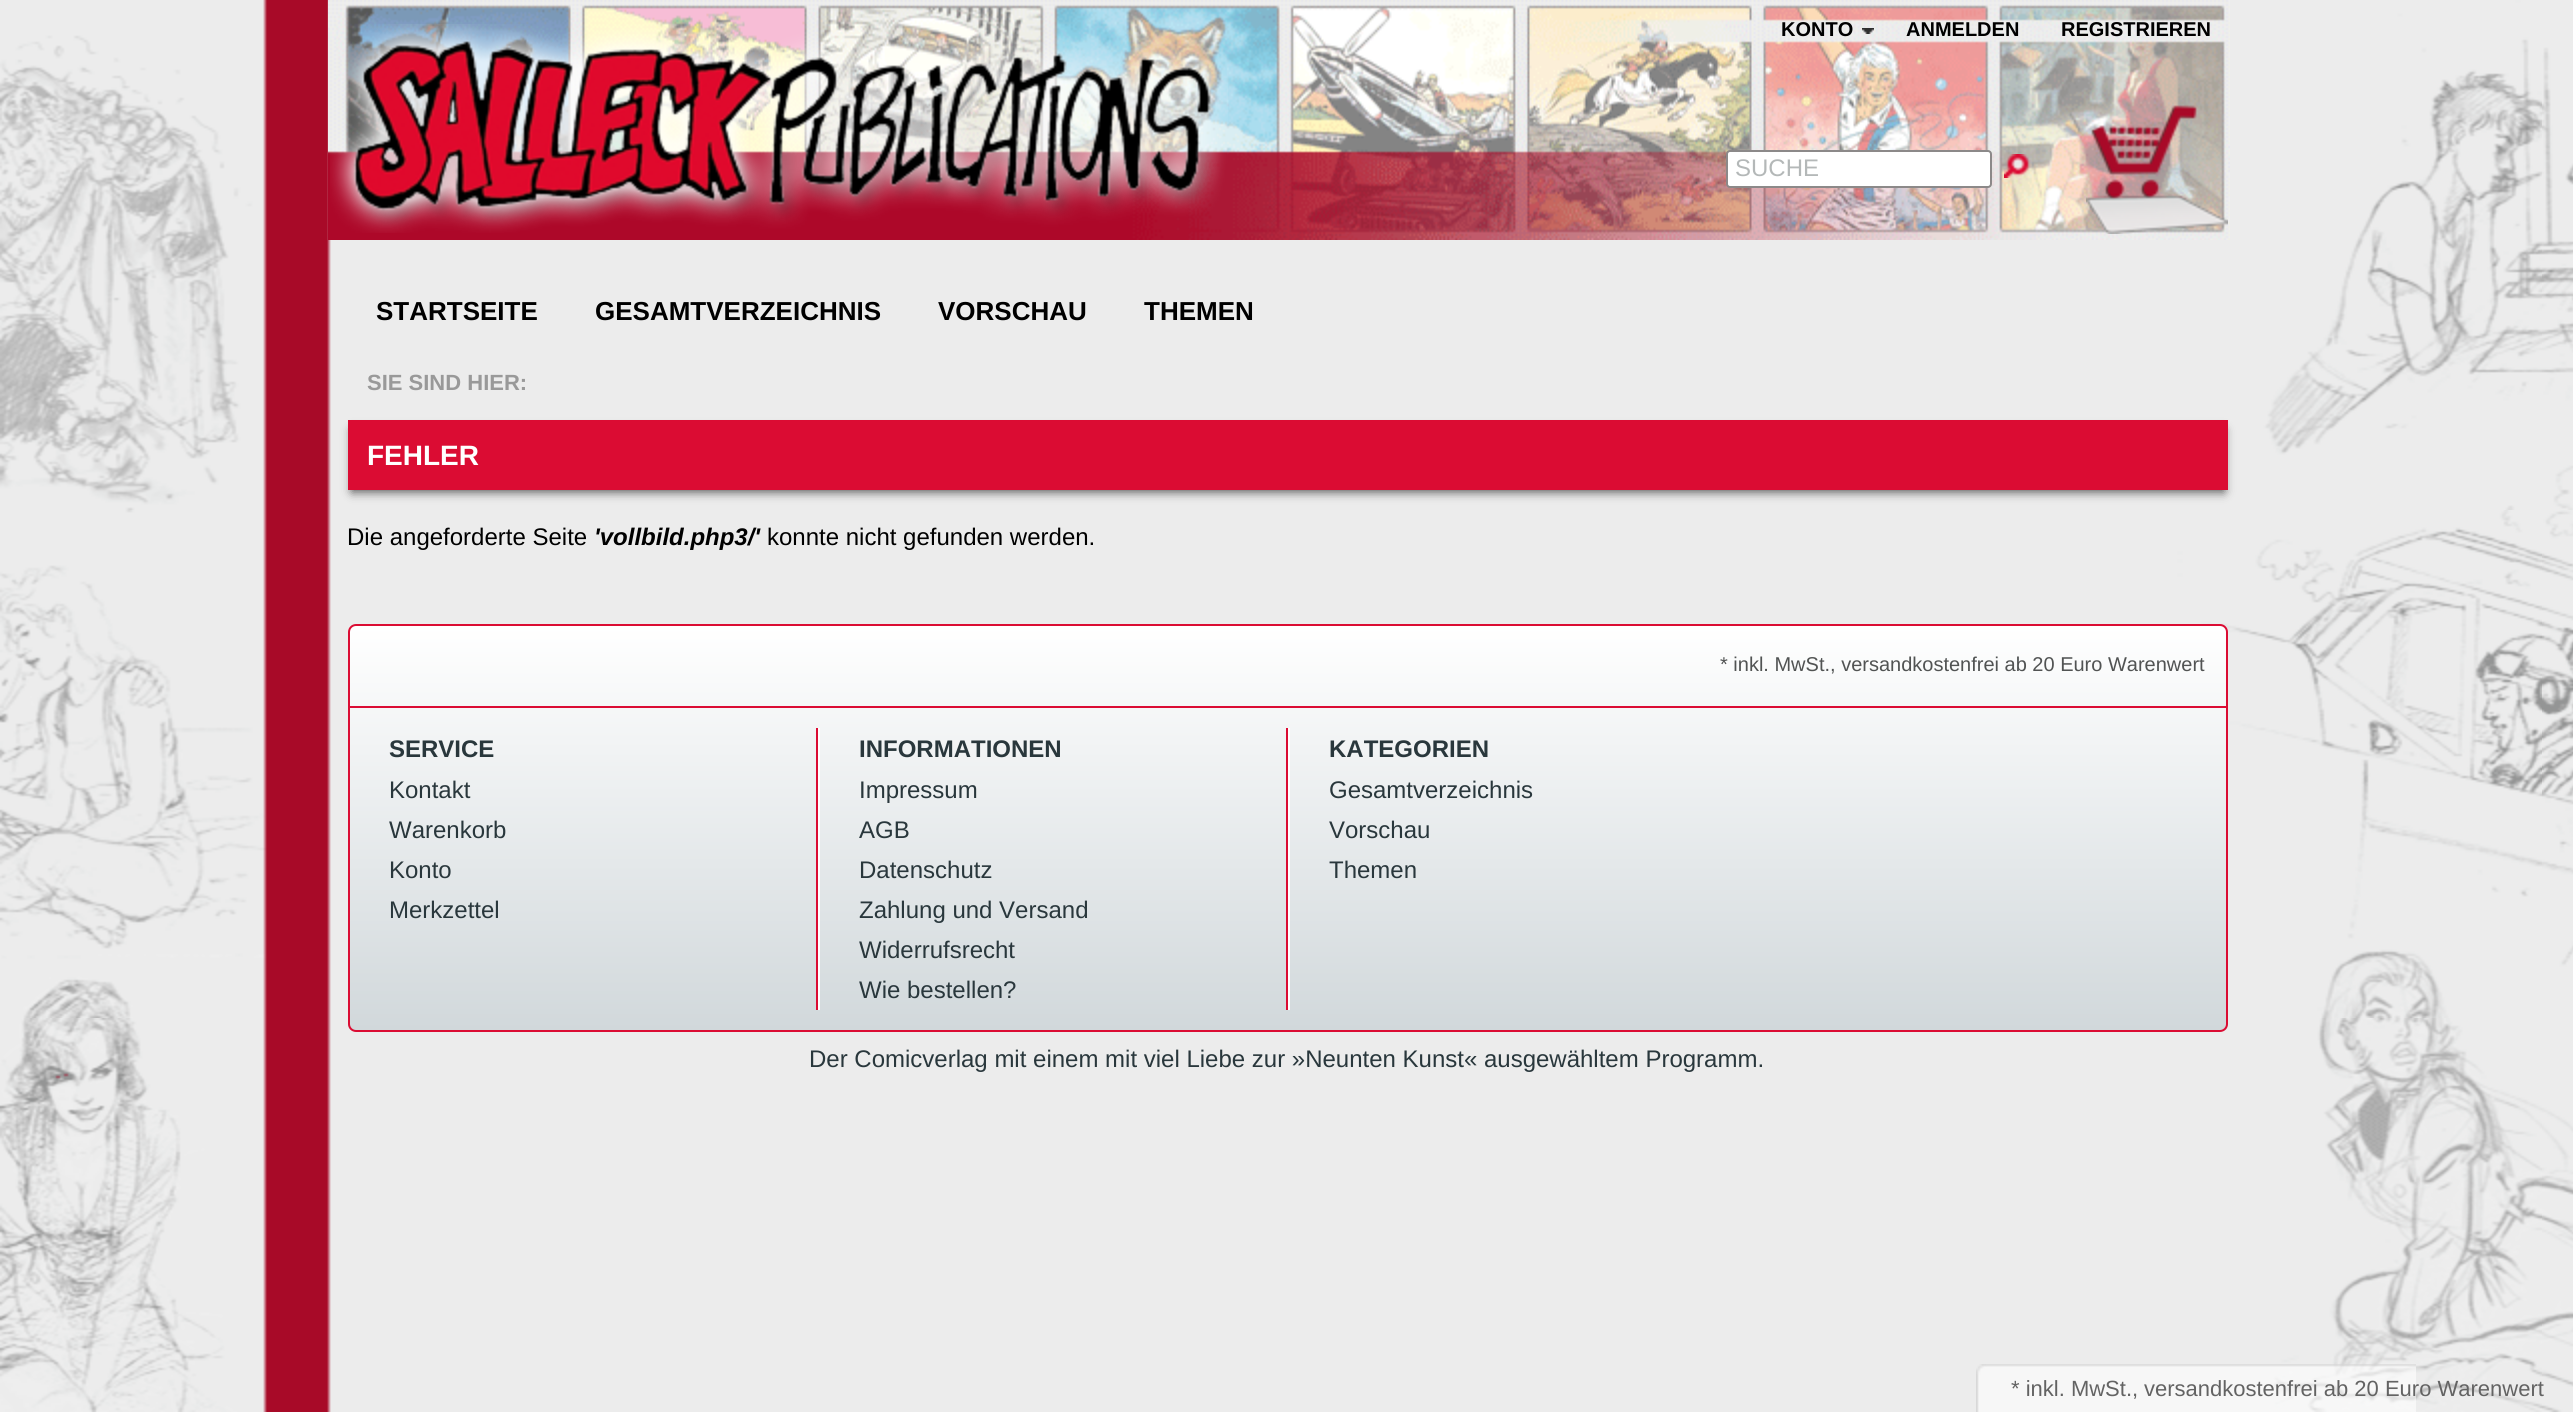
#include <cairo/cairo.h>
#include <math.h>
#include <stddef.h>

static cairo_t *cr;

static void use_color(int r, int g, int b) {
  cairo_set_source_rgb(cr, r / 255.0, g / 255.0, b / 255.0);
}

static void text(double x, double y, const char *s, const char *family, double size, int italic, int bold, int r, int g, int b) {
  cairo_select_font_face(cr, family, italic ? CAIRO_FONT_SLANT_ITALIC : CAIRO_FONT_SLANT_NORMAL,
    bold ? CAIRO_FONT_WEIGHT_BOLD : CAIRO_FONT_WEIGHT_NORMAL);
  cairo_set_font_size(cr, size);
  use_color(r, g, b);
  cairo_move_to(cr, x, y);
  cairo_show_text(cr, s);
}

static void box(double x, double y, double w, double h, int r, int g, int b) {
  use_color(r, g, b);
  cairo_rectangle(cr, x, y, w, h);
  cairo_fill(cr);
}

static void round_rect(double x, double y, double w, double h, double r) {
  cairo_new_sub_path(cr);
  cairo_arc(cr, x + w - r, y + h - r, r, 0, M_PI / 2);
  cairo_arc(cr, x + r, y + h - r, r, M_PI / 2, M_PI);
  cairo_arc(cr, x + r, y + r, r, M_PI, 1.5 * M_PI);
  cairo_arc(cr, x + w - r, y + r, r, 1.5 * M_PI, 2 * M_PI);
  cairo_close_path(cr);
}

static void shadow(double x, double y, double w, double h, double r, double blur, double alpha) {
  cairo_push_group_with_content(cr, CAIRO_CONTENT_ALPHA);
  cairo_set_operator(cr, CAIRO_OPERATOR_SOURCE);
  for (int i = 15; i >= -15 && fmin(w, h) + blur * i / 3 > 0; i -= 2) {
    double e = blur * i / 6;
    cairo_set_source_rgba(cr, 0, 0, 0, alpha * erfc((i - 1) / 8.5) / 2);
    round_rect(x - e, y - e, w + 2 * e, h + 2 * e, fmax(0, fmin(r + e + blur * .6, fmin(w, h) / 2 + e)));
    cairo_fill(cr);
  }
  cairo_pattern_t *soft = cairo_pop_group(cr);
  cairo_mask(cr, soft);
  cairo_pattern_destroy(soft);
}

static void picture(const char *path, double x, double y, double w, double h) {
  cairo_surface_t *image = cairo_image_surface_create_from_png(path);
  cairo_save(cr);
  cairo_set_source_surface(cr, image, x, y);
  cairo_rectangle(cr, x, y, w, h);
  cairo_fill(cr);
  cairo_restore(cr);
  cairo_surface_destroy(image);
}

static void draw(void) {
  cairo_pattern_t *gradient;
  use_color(255, 255, 255);
  cairo_paint(cr);
  picture("img_01.png", 0, 0, 2573, 1412);
  picture("img_02.png", 328, 0, 1902, 240);
  picture("img_03.png", 330, 24, 898, 209);
  picture("img_04.png", 1862, 28, 12, 6);
  use_color(255, 255, 255);
  round_rect(1727, 151, 264, 36, 3);
  cairo_fill_preserve(cr);
  use_color(140, 137, 137);
  cairo_stroke(cr);
  picture("img_05.png", 2004, 154, 27, 24);
  picture("img_06.png", 2086, 105, 142, 129);
  use_color(85, 85, 85);
  shadow(352, 430, 1872, 62, 0, 5, 1);
  box(348, 420, 1880, 70, 219, 12, 51);
  cairo_save(cr);
  round_rect(348, 624, 1880, 408, 8);
  cairo_clip(cr);
  gradient = cairo_pattern_create_linear(1288, 626, 1288, 1030);
  cairo_pattern_add_color_stop_rgba(gradient, 0, 1, 1, 1, 1);
  cairo_pattern_add_color_stop_rgba(gradient, 1, 0.82, 0.847, 0.859, 1);
  cairo_set_source(cr, gradient);
  cairo_pattern_destroy(gradient);
  cairo_rectangle(cr, 348, 626, 1880, 404);
  cairo_fill(cr);
  cairo_restore(cr);
  round_rect(349, 625, 1878, 406, 7);
  cairo_stroke(cr);
  box(350, 706, 1876, 2, 219, 12, 51);
  box(816, 728, 2, 282, 219, 12, 51);
  box(1286, 728, 2, 282, 219, 12, 51);
  box(818, 728, 2, 282, 255, 255, 255);
  box(1288, 728, 2, 282, 255, 255, 255);
  picture("img_07.png", 1976, 1364, 440, 48);
  text(1781, 36, "KONTO", "Liberation Sans", 20, 0, 1, 0, 0, 0);
  text(1906, 36, "ANMELDEN", "Liberation Sans", 20, 0, 1, 0, 0, 0);
  text(2061, 36, "REGISTRIEREN", "Liberation Sans", 20, 0, 1, 0, 0, 0);
  text(1735, 176, "SUCHE", "Liberation Sans", 24, 0, 0, 180, 184, 184);
  text(376, 320, "STARTSEITE", "Liberation Sans", 26, 0, 1, 0, 0, 0);
  text(595, 320, "GESAMTVERZEICHNIS", "Liberation Sans", 26, 0, 1, 0, 0, 0);
  text(938, 320, "VORSCHAU", "Liberation Sans", 26, 0, 1, 0, 0, 0);
  text(1144, 320, "THEMEN", "Liberation Sans", 26, 0, 1, 0, 0, 0);
  text(367, 390, "SIE SIND HIER:", "Liberation Sans", 22, 0, 1, 153, 153, 153);
  text(367, 465, "FEHLER", "Liberation Sans", 28, 0, 1, 255, 255, 255);
  text(347, 545, "Die angeforderte Seite", "Liberation Sans", 24, 0, 0, 0, 0, 0);
  text(594, 545, "'vollbild.php3/'", "Liberation Sans", 24, 1, 1, 0, 0, 0);
  text(767, 545, "konnte nicht gefunden werden.", "Liberation Sans", 24, 0, 0, 0, 0, 0);
  text(1720, 671, "* inkl. MwSt., versandkostenfrei ab 20 Euro Warenwert", "Liberation Sans", 20, 0, 0, 81, 83, 83);
  text(389, 757, "SERVICE", "Liberation Sans", 24, 0, 1, 41, 55, 60);
  text(389, 798, "Kontakt", "Liberation Sans", 24, 0, 0, 41, 55, 60);
  text(389, 838, "Warenkorb", "Liberation Sans", 24, 0, 0, 41, 55, 60);
  text(389, 878, "Konto", "Liberation Sans", 24, 0, 0, 41, 55, 60);
  text(389, 918, "Merkzettel", "Liberation Sans", 24, 0, 0, 41, 55, 60);
  text(859, 757, "INFORMATIONEN", "Liberation Sans", 24, 0, 1, 41, 55, 60);
  text(859, 798, "Impressum", "Liberation Sans", 24, 0, 0, 41, 55, 60);
  text(859, 838, "AGB", "Liberation Sans", 24, 0, 0, 41, 55, 60);
  text(859, 878, "Datenschutz", "Liberation Sans", 24, 0, 0, 41, 55, 60);
  text(859, 918, "Zahlung und Versand", "Liberation Sans", 24, 0, 0, 41, 55, 60);
  text(859, 958, "Widerrufsrecht", "Liberation Sans", 24, 0, 0, 41, 55, 60);
  text(859, 998, "Wie bestellen?", "Liberation Sans", 24, 0, 0, 41, 55, 60);
  text(1329, 757, "KATEGORIEN", "Liberation Sans", 24, 0, 1, 41, 55, 60);
  text(1329, 798, "Gesamtverzeichnis", "Liberation Sans", 24, 0, 0, 41, 55, 60);
  text(1329, 838, "Vorschau", "Liberation Sans", 24, 0, 0, 41, 55, 60);
  text(1329, 878, "Themen", "Liberation Sans", 24, 0, 0, 41, 55, 60);
  text(809, 1067, "Der Comicverlag mit einem mit viel Liebe zur »Neunten Kunst« ausgewähltem Programm.", "Liberation Sans", 24, 0, 0, 41, 55, 60);
  text(2011, 1396, "* inkl. MwSt.,", "Liberation Sans", 22, 0, 0, 99, 99, 99);
  text(2144, 1396, "versandkostenfrei ab 20 Euro Warenwert", "Liberation Sans", 22, 0, 0, 99, 99, 99);
}

int main(void) {
  cairo_surface_t *surface = cairo_image_surface_create(CAIRO_FORMAT_RGB24, 2573, 1412);
  cr = cairo_create(surface);
  cairo_font_options_t *options = cairo_font_options_create();
  cairo_font_options_set_hint_metrics(options, CAIRO_HINT_METRICS_OFF);
  cairo_font_options_set_hint_style(options, CAIRO_HINT_STYLE_NONE);
  cairo_set_font_options(cr, options);
  cairo_set_miter_limit(cr, 4);
  draw();
  cairo_surface_write_to_png(surface, "out.png");
  cairo_font_options_destroy(options);
  cairo_destroy(cr);
  cairo_surface_destroy(surface);
  return 0;
}
